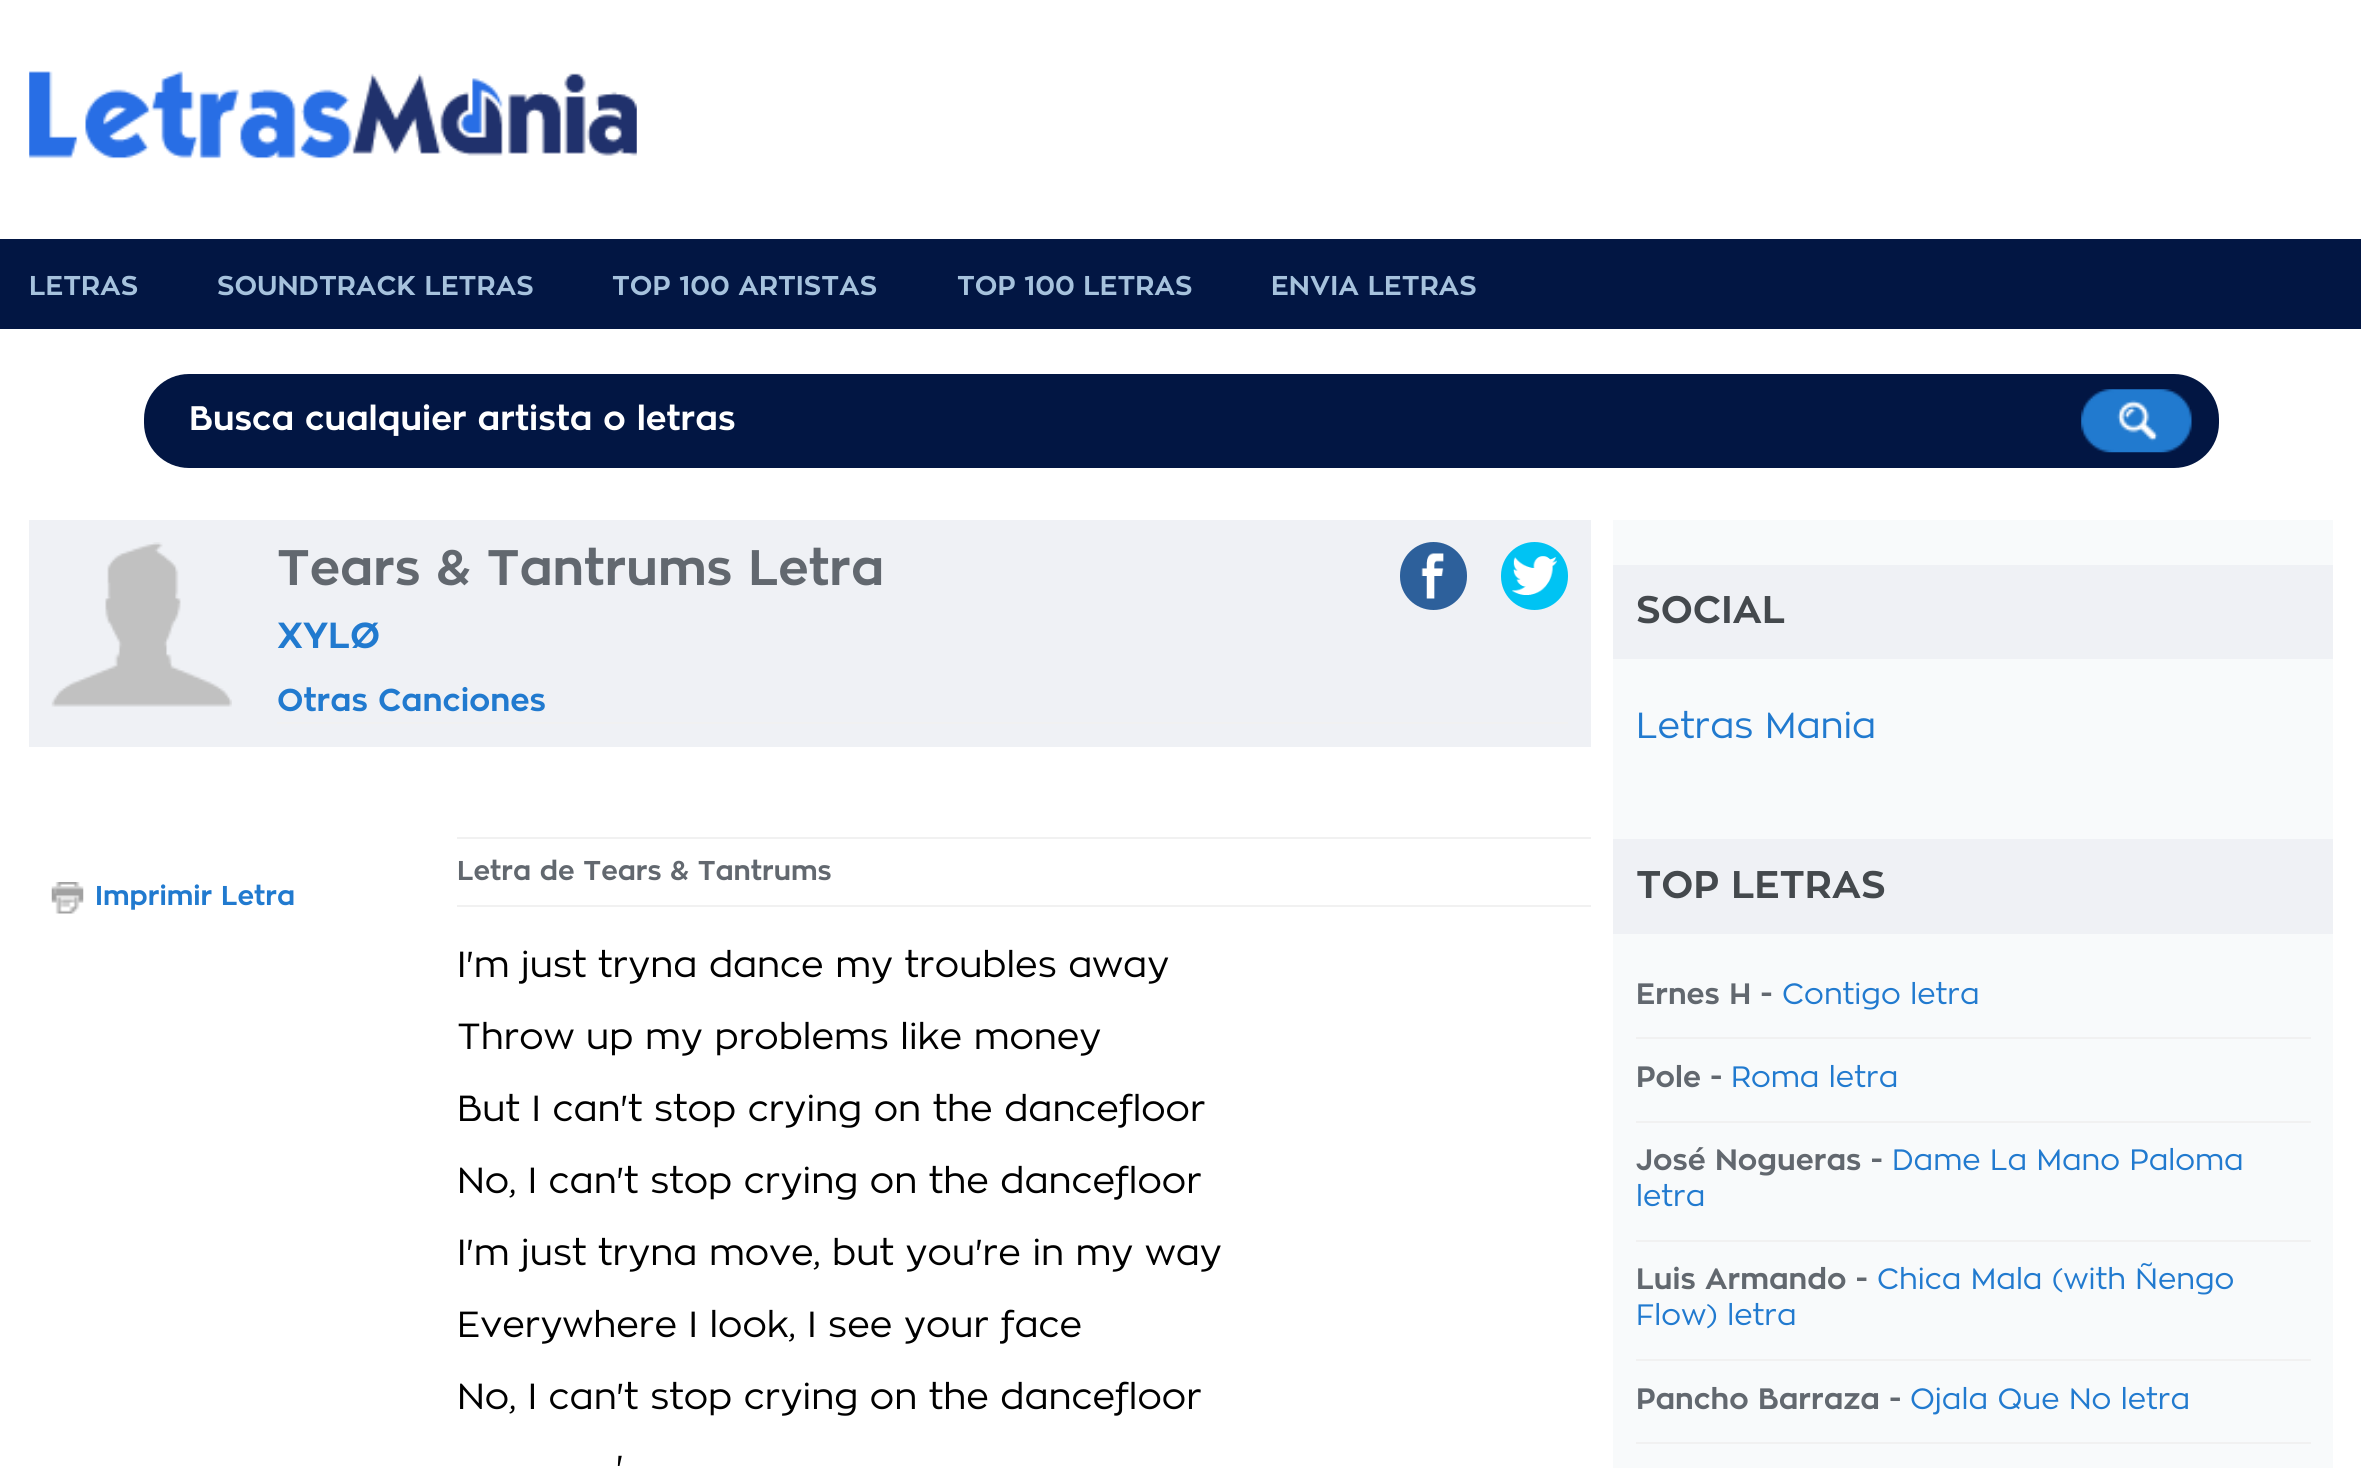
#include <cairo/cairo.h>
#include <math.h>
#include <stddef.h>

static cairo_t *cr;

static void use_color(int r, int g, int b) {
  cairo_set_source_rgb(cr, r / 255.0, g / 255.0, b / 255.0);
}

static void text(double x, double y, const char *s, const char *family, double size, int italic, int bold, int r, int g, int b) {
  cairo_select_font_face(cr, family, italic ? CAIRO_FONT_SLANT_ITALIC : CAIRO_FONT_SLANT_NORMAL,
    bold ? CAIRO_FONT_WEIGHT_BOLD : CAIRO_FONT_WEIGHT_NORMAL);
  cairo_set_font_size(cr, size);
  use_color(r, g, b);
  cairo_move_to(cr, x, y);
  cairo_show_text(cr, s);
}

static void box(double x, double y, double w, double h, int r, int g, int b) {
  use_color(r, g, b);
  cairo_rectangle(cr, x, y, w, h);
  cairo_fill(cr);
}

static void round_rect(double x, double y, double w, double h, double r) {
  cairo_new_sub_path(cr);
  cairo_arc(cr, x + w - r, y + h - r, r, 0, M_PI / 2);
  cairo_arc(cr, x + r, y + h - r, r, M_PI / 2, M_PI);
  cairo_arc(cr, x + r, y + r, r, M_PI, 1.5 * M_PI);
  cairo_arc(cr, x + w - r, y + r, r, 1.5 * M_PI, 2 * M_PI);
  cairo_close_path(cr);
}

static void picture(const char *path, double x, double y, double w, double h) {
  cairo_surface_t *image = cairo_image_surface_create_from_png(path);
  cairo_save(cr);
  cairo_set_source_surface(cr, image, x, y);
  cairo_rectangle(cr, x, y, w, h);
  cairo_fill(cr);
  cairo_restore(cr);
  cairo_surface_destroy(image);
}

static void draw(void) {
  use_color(255, 255, 255);
  cairo_paint(cr);
  picture("img_01.png", 29, 71, 608, 88);
  box(0, 239, 2361, 90, 2, 22, 67);
  round_rect(144, 374, 2075, 94, 45);
  cairo_fill(cr);
  picture("img_02.png", 2081, 389, 111, 64);
  box(29, 520, 1562, 227, 239, 241, 245);
  picture("img_03.png", 51, 542, 181, 165);
  box(277, 722, 1291, 2, 241, 241, 241);
  use_color(45, 96, 155);
  round_rect(1400, 542, 67, 68, 33.5);
  cairo_fill(cr);
  picture("img_04.png", 1421, 553, 23, 46);
  use_color(0, 195, 243);
  round_rect(1501, 542, 67, 68, 33.5);
  cairo_fill(cr);
  picture("img_05.png", 1512, 556, 45, 39);
  picture("img_06.png", 51, 882, 33, 32);
  box(457, 837, 1134, 2, 241, 241, 241);
  box(457, 905, 1134, 2, 241, 241, 241);
  box(1613, 520, 720, 948, 248, 250, 251);
  box(1613, 565, 720, 94, 239, 241, 245);
  box(1613, 839, 720, 95, 239, 241, 245);
  box(1636, 1037, 675, 2, 241, 241, 241);
  box(1636, 1121, 675, 2, 241, 241, 241);
  box(1636, 1240, 675, 2, 241, 241, 241);
  box(1636, 1359, 675, 2, 241, 241, 241);
  box(1636, 1442, 675, 2, 241, 241, 241);
  text(29, 295, "LETRAS", "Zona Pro", 27, 0, 1, 166, 194, 221);
  text(217, 295, "SOUNDTRACK LETRAS", "Zona Pro", 27, 0, 1, 166, 194, 221);
  text(612, 295, "TOP 100 ARTISTAS", "Zona Pro", 27, 0, 1, 166, 194, 221);
  text(957, 295, "TOP 100 LETRAS", "Zona Pro", 27, 0, 1, 166, 194, 221);
  text(1271, 295, "ENVIA LETRAS", "Zona Pro", 27, 0, 1, 166, 194, 221);
  text(189, 430, "Busca cualquier artista o letras", "Zona Pro", 33.75, 0, 1, 255, 255, 255);
  text(277, 585, "Tears & Tantrums Letra", "Zona Pro", 49.5, 0, 1, 98, 104, 111);
  text(277, 648, "XYLØ", "Zona Pro", 36, 0, 1, 33, 122, 207);
  text(277, 711, "Otras Canciones", "Zona Pro", 31.5, 0, 1, 33, 122, 207);
  text(95, 905, "Imprimir Letra", "Zona Pro", 27, 0, 1, 33, 122, 207);
  text(457, 880, "Letra de Tears & Tantrums", "Zona Pro", 27, 0, 1, 98, 104, 111);
  text(457, 977, "I'm just tryna dance my troubles away", "Zona Pro", 36, 0, 0, 0, 0, 0);
  text(457, 1049, "Throw up my problems like money", "Zona Pro", 36, 0, 0, 0, 0, 0);
  text(457, 1121, "But I can't stop crying on the dancefloor", "Zona Pro", 36, 0, 0, 0, 0, 0);
  text(457, 1193, "No, I can't stop crying on the dancefloor", "Zona Pro", 36, 0, 0, 0, 0, 0);
  text(457, 1265, "I'm just tryna move, but you're in my way", "Zona Pro", 36, 0, 0, 0, 0, 0);
  text(457, 1337, "Everywhere I look, I see your face", "Zona Pro", 36, 0, 0, 0, 0, 0);
  text(457, 1409, "No, I can't stop crying on the dancefloor", "Zona Pro", 36, 0, 0, 0, 0, 0);
  text(616, 1481, "'", "Zona Pro", 36, 0, 0, 0, 0, 0);
  text(1636, 623, "SOCIAL", "Zona Pro", 38.25, 0, 1, 68, 73, 77);
  text(1636, 738, "Letras Mania", "Zona Pro", 36, 0, 0, 33, 122, 207);
  text(1636, 898, "TOP LETRAS", "Zona Pro", 38.25, 0, 1, 68, 73, 77);
  text(1636, 1004, "Ernes H -", "Zona Pro", 29.25, 0, 1, 98, 104, 111);
  text(1782, 1004, "Contigo letra", "Zona Pro", 29.25, 0, 0, 33, 122, 207);
  text(1636, 1087, "Pole -", "Zona Pro", 29.25, 0, 1, 98, 104, 111);
  text(1731, 1087, "Roma letra", "Zona Pro", 29.25, 0, 0, 33, 122, 207);
  text(1636, 1170, "José Nogueras -", "Zona Pro", 29.25, 0, 1, 98, 104, 111);
  text(1892, 1170, "Dame La Mano Paloma", "Zona Pro", 29.25, 0, 0, 33, 122, 207);
  text(1636, 1206, "letra", "Zona Pro", 29.25, 0, 0, 33, 122, 207);
  text(1636, 1289, "Luis Armando -", "Zona Pro", 29.25, 0, 1, 98, 104, 111);
  text(1877, 1289, "Chica Mala (with Ñengo", "Zona Pro", 29.25, 0, 0, 33, 122, 207);
  text(1636, 1325, "Flow) letra", "Zona Pro", 29.25, 0, 0, 33, 122, 207);
  text(1636, 1409, "Pancho Barraza -", "Zona Pro", 29.25, 0, 1, 98, 104, 111);
  text(1910, 1409, "Ojala Que No letra", "Zona Pro", 29.25, 0, 0, 33, 122, 207);
}

int main(void) {
  cairo_surface_t *surface = cairo_image_surface_create(CAIRO_FORMAT_RGB24, 2361, 1468);
  cr = cairo_create(surface);
  cairo_font_options_t *options = cairo_font_options_create();
  cairo_font_options_set_hint_metrics(options, CAIRO_HINT_METRICS_OFF);
  cairo_font_options_set_hint_style(options, CAIRO_HINT_STYLE_NONE);
  cairo_set_font_options(cr, options);
  cairo_set_miter_limit(cr, 4);
  draw();
  cairo_surface_write_to_png(surface, "out.png");
  cairo_font_options_destroy(options);
  cairo_destroy(cr);
  cairo_surface_destroy(surface);
  return 0;
}
